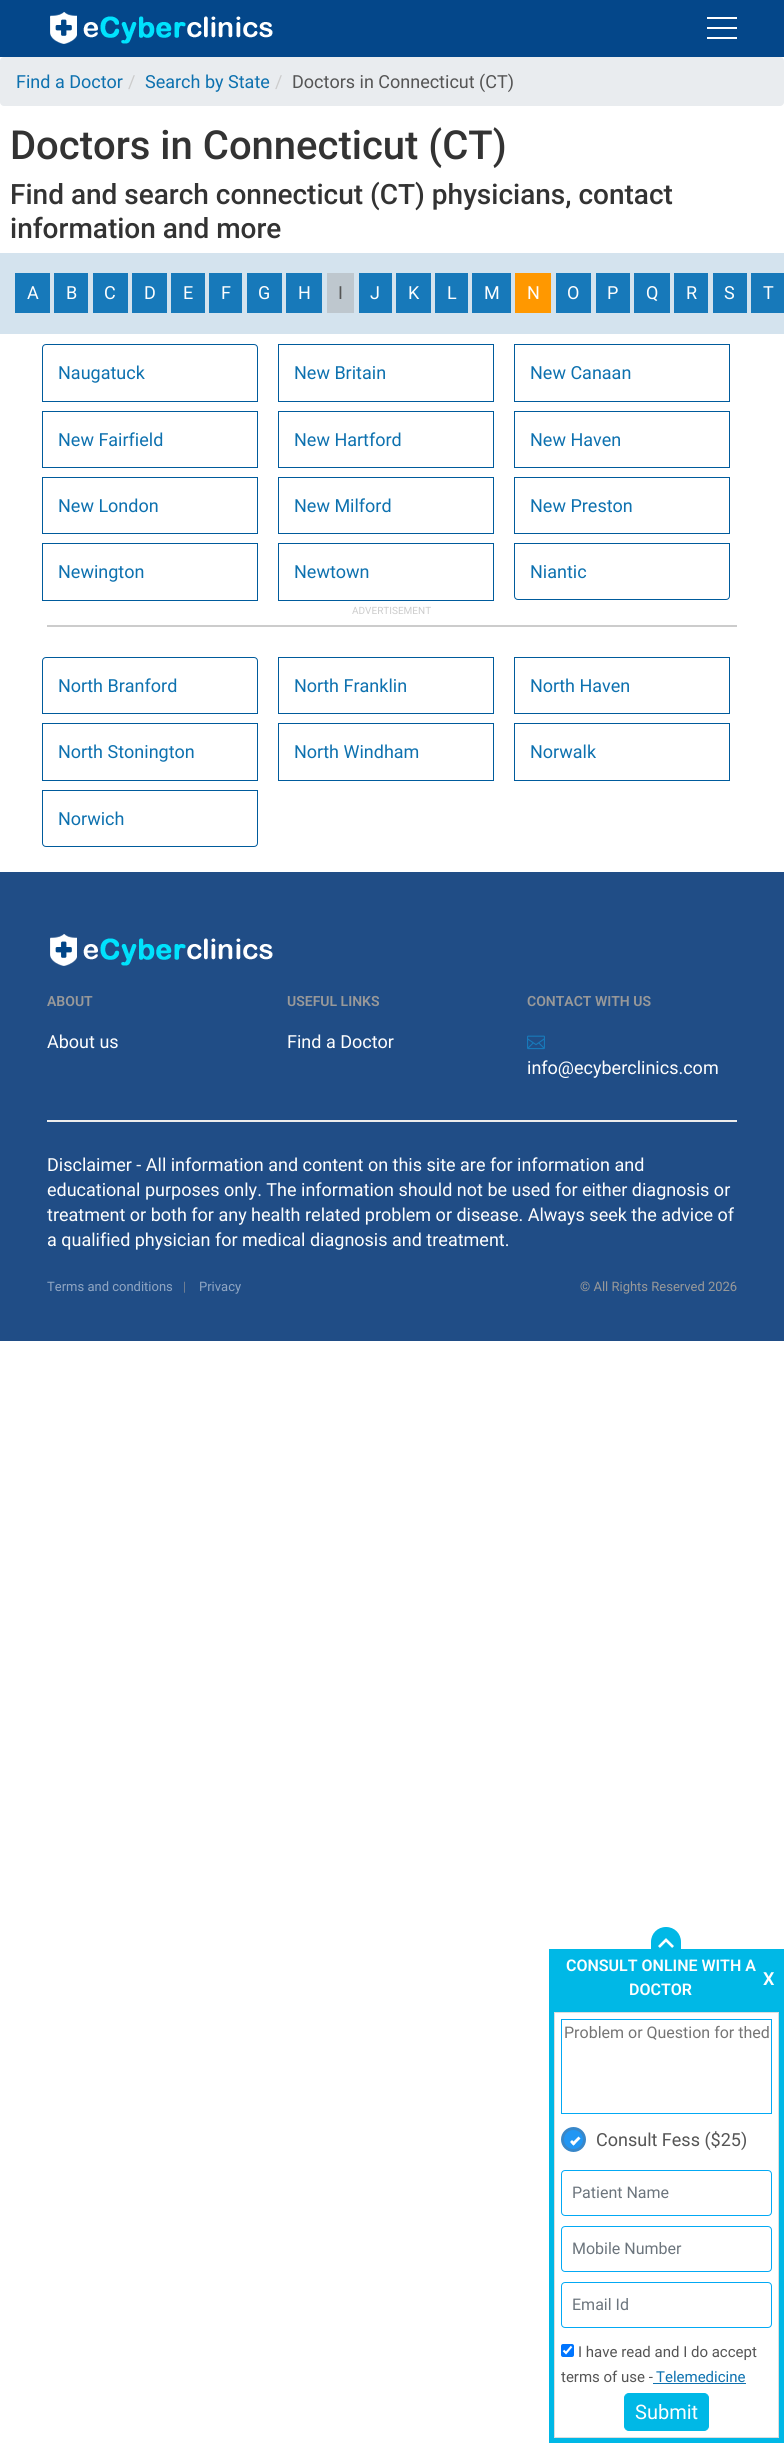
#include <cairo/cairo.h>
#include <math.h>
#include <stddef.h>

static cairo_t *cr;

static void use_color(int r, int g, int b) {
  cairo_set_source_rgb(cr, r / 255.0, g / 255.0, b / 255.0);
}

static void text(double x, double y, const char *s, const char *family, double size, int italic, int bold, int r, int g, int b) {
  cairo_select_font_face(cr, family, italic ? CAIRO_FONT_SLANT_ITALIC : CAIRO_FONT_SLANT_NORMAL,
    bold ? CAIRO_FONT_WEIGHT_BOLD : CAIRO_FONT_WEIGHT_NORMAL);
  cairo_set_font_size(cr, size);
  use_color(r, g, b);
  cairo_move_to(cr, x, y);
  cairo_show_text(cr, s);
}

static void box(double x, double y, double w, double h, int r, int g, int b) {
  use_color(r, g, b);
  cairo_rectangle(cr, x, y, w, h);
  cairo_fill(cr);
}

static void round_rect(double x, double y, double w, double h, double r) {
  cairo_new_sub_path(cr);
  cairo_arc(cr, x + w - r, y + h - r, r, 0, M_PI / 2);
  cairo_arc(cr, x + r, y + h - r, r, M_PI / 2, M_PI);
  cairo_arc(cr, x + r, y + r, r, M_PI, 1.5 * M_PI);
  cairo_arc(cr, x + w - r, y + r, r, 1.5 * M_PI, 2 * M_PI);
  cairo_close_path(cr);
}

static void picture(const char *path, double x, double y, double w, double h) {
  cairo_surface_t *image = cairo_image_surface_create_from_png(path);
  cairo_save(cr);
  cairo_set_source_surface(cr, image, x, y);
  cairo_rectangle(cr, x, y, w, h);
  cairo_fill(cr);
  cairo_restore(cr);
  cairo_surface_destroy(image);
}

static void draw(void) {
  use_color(255, 255, 255);
  cairo_paint(cr);
  box(0, 0, 784, 57, 4, 71, 138);
  picture("img_01.png", 50, 12, 223, 32);
  box(707, 27, 30, 2, 255, 255, 255);
  box(707, 17, 30, 2, 255, 255, 255);
  box(707, 37, 30, 2, 255, 255, 255);
  use_color(233, 236, 239);
  round_rect(0, 57, 784, 49, 4);
  cairo_fill(cr);
  box(0, 253, 784, 81, 212, 227, 238);
  box(15, 273, 35, 40, 23, 121, 186);
  box(54, 273, 34, 40, 23, 121, 186);
  box(93, 273, 35, 40, 23, 121, 186);
  box(132, 273, 35, 40, 23, 121, 186);
  box(171, 273, 34, 40, 23, 121, 186);
  box(209, 273, 33, 40, 23, 121, 186);
  box(247, 273, 35, 40, 23, 121, 186);
  box(286, 273, 36, 40, 23, 121, 186);
  box(327, 273, 27, 40, 190, 199, 206);
  box(359, 273, 33, 40, 23, 121, 186);
  box(396, 273, 35, 40, 23, 121, 186);
  box(435, 273, 33, 40, 23, 121, 186);
  box(472, 273, 39, 40, 23, 121, 186);
  box(515, 273, 36, 40, 255, 152, 0);
  box(556, 273, 35, 40, 23, 121, 186);
  box(596, 273, 34, 40, 23, 121, 186);
  box(634, 273, 36, 40, 23, 121, 186);
  box(674, 273, 34, 40, 23, 121, 186);
  box(713, 273, 34, 40, 23, 121, 186);
  box(751, 273, 33, 40, 23, 121, 186);
  cairo_new_path(cr);
  cairo_move_to(cr, 46, 344.5);
  cairo_line_to(cr, 254, 344.5);
  cairo_curve_to(cr, 256, 344.5, 257.5, 346, 257.5, 348);
  cairo_line_to(cr, 257.5, 401.5);
  cairo_line_to(cr, 42.5, 401.5);
  cairo_line_to(cr, 42.5, 348);
  cairo_curve_to(cr, 42.5, 346, 44, 344.5, 46, 344.5);
  cairo_close_path(cr);
  use_color(0, 91, 156);
  cairo_set_line_width(cr, 1);
  cairo_stroke(cr);
  cairo_rectangle(cr, 278.5, 344.5, 215, 57);
  cairo_stroke(cr);
  cairo_rectangle(cr, 514.5, 344.5, 215, 57);
  cairo_stroke(cr);
  cairo_rectangle(cr, 42.5, 411.5, 215, 56);
  cairo_stroke(cr);
  cairo_rectangle(cr, 278.5, 411.5, 215, 56);
  cairo_stroke(cr);
  cairo_rectangle(cr, 514.5, 411.5, 215, 56);
  cairo_stroke(cr);
  cairo_rectangle(cr, 42.5, 477.5, 215, 56);
  cairo_stroke(cr);
  cairo_rectangle(cr, 278.5, 477.5, 215, 56);
  cairo_stroke(cr);
  cairo_rectangle(cr, 514.5, 477.5, 215, 56);
  cairo_stroke(cr);
  cairo_rectangle(cr, 42.5, 543.5, 215, 57);
  cairo_stroke(cr);
  cairo_rectangle(cr, 278.5, 543.5, 215, 57);
  cairo_stroke(cr);
  cairo_new_path(cr);
  cairo_move_to(cr, 514.5, 543.5);
  cairo_line_to(cr, 729.5, 543.5);
  cairo_line_to(cr, 729.5, 596);
  cairo_curve_to(cr, 729.5, 598, 728, 599.5, 726, 599.5);
  cairo_line_to(cr, 518, 599.5);
  cairo_curve_to(cr, 516, 599.5, 514.5, 598, 514.5, 596);
  cairo_close_path(cr);
  cairo_stroke(cr);
  box(47, 625, 690, 2, 204, 204, 204);
  cairo_new_path(cr);
  cairo_move_to(cr, 46, 657.5);
  cairo_line_to(cr, 254, 657.5);
  cairo_curve_to(cr, 256, 657.5, 257.5, 659, 257.5, 661);
  cairo_line_to(cr, 257.5, 713.5);
  cairo_line_to(cr, 42.5, 713.5);
  cairo_line_to(cr, 42.5, 661);
  cairo_curve_to(cr, 42.5, 659, 44, 657.5, 46, 657.5);
  cairo_close_path(cr);
  use_color(0, 91, 156);
  cairo_stroke(cr);
  cairo_rectangle(cr, 278.5, 657.5, 215, 56);
  cairo_stroke(cr);
  cairo_rectangle(cr, 514.5, 657.5, 215, 56);
  cairo_stroke(cr);
  cairo_rectangle(cr, 42.5, 723.5, 215, 57);
  cairo_stroke(cr);
  cairo_rectangle(cr, 278.5, 723.5, 215, 57);
  cairo_stroke(cr);
  cairo_rectangle(cr, 514.5, 723.5, 215, 57);
  cairo_stroke(cr);
  cairo_new_path(cr);
  cairo_move_to(cr, 42.5, 790.5);
  cairo_line_to(cr, 257.5, 790.5);
  cairo_line_to(cr, 257.5, 843);
  cairo_curve_to(cr, 257.5, 845, 256, 846.5, 254, 846.5);
  cairo_line_to(cr, 46, 846.5);
  cairo_curve_to(cr, 44, 846.5, 42.5, 845, 42.5, 843);
  cairo_close_path(cr);
  cairo_stroke(cr);
  box(0, 872, 784, 469, 32, 77, 134);
  picture("img_02.png", 50, 934, 223, 32);
  picture("img_03.png", 527, 1035, 18, 15);
  box(47, 1120, 690, 2, 237, 237, 237);
  box(549, 1949, 235, 494, 0, 184, 230);
  cairo_new_path(cr);
  cairo_move_to(cr, 666, 1927);
  cairo_curve_to(cr, 674.5, 1927, 681, 1933.5, 681, 1942);
  cairo_line_to(cr, 681, 1957);
  cairo_line_to(cr, 651, 1957);
  cairo_line_to(cr, 651, 1942);
  cairo_curve_to(cr, 651, 1933.5, 657.5, 1927, 666, 1927);
  cairo_close_path(cr);
  cairo_fill(cr);
  picture("img_04.png", 658, 1938, 16, 10);
  use_color(255, 255, 255);
  cairo_rectangle(cr, 554.5, 2012.5, 224, 425);
  cairo_fill_preserve(cr);
  use_color(221, 221, 221);
  cairo_stroke(cr);
  cairo_rectangle(cr, 561.5, 2019.5, 210, 94);
  use_color(3, 169, 244);
  cairo_stroke(cr);
  use_color(33, 150, 243);
  cairo_arc(cr, 573.5, 2139.5, 11, 0, 2 * M_PI);
  cairo_fill_preserve(cr);
  use_color(56, 135, 201);
  cairo_set_line_width(cr, 3);
  cairo_stroke(cr);
  use_color(255, 255, 255);
  cairo_new_path(cr);
  cairo_move_to(cr, 578.5, 2136.5);
  cairo_line_to(cr, 580.5, 2138.5);
  cairo_line_to(cr, 573.5, 2145.5);
  cairo_line_to(cr, 571.5, 2143.5);
  cairo_close_path(cr);
  cairo_fill(cr);
  cairo_new_path(cr);
  cairo_move_to(cr, 572, 2140);
  cairo_line_to(cr, 575.5, 2143.5);
  cairo_line_to(cr, 573.5, 2145.5);
  cairo_line_to(cr, 570, 2142);
  cairo_close_path(cr);
  cairo_fill(cr);
  round_rect(561.5, 2170.5, 210, 45, 3.5);
  use_color(3, 169, 244);
  cairo_set_line_width(cr, 1);
  cairo_stroke(cr);
  round_rect(561.5, 2226.5, 210, 45, 3.5);
  cairo_stroke(cr);
  round_rect(561.5, 2282.5, 210, 45, 3.5);
  cairo_stroke(cr);
  use_color(0, 117, 255);
  round_rect(561, 2344, 13, 13, 2);
  cairo_fill(cr);
  cairo_new_path(cr);
  cairo_move_to(cr, 563.5, 2350.5);
  cairo_line_to(cr, 566, 2353);
  cairo_line_to(cr, 571.5, 2346.5);
  use_color(255, 255, 255);
  cairo_set_line_width(cr, 2.1);
  cairo_stroke(cr);
  box(653, 2383, 93, 1, 13, 113, 175);
  use_color(0, 184, 230);
  round_rect(624.5, 2393.5, 84, 37, 4.5);
  cairo_fill_preserve(cr);
  cairo_set_line_width(cr, 1);
  cairo_stroke(cr);
  text(16, 88, "Find a Doctor", "Roboto", 18, 0, 0, 13, 113, 175);
  text(128, 88, "/", "Roboto", 18, 0, 0, 204, 204, 204);
  text(145, 88, "Search by State", "Roboto", 18, 0, 0, 13, 113, 175);
  text(275, 88, "/", "Roboto", 18, 0, 0, 204, 204, 204);
  text(292, 88, "Doctors in Connecticut (CT)", "Roboto", 18, 0, 0, 85, 85, 85);
  text(10, 159, "Doctors in Connecticut (CT)", "Roboto Medium", 40, 0, 0, 51, 51, 51);
  text(10, 204, "Find and search connecticut (CT) physicians, contact", "Roboto Medium", 28, 0, 0, 51, 51, 51);
  text(10, 238, "information and more", "Roboto Medium", 28, 0, 0, 51, 51, 51);
  text(27, 299, "A", "Roboto", 18, 0, 0, 254, 254, 254);
  text(66, 299, "B", "Roboto", 18, 0, 0, 254, 254, 254);
  text(104, 299, "C", "Roboto", 18, 0, 0, 254, 254, 254);
  text(144, 299, "D", "Roboto", 18, 0, 0, 254, 254, 254);
  text(183, 299, "E", "Roboto", 18, 0, 0, 254, 254, 254);
  text(221, 299, "F", "Roboto", 18, 0, 0, 254, 254, 254);
  text(258, 299, "G", "Roboto", 18, 0, 0, 254, 254, 254);
  text(298, 299, "H", "Roboto", 18, 0, 0, 254, 254, 254);
  text(338, 299, "I", "Roboto", 18, 0, 0, 85, 85, 85);
  text(370, 299, "J", "Roboto", 18, 0, 0, 254, 254, 254);
  text(408, 299, "K", "Roboto", 18, 0, 0, 254, 254, 254);
  text(447, 299, "L", "Roboto", 18, 0, 0, 254, 254, 254);
  text(484, 299, "M", "Roboto", 18, 0, 0, 254, 254, 254);
  text(527, 299, "N", "Roboto", 18, 0, 0, 254, 254, 254);
  text(567, 299, "O", "Roboto", 18, 0, 0, 254, 254, 254);
  text(607, 299, "P", "Roboto", 18, 0, 0, 254, 254, 254);
  text(646, 299, "Q", "Roboto", 18, 0, 0, 254, 254, 254);
  text(686, 299, "R", "Roboto", 18, 0, 0, 254, 254, 254);
  text(724, 299, "S", "Roboto", 18, 0, 0, 254, 254, 254);
  text(763, 299, "T", "Roboto", 18, 0, 0, 254, 254, 254);
  text(58, 379, "Naugatuck", "Roboto", 18, 0, 0, 13, 113, 175);
  text(294, 379, "New Britain", "Roboto", 18, 0, 0, 13, 113, 175);
  text(530, 379, "New Canaan", "Roboto", 18, 0, 0, 13, 113, 175);
  text(58, 446, "New Fairfield", "Roboto", 18, 0, 0, 13, 113, 175);
  text(294, 446, "New Hartford", "Roboto", 18, 0, 0, 13, 113, 175);
  text(530, 446, "New Haven", "Roboto", 18, 0, 0, 13, 113, 175);
  text(58, 512, "New London", "Roboto", 18, 0, 0, 13, 113, 175);
  text(294, 512, "New Milford", "Roboto", 18, 0, 0, 13, 113, 175);
  text(530, 512, "New Preston", "Roboto", 18, 0, 0, 13, 113, 175);
  text(58, 578, "Newington", "Roboto", 18, 0, 0, 13, 113, 175);
  text(294, 578, "Newtown", "Roboto", 18, 0, 0, 13, 113, 175);
  text(530, 578, "Niantic", "Roboto", 18, 0, 0, 13, 113, 175);
  text(352, 614, "ADVERTISEMENT", "Roboto", 10, 0, 0, 204, 204, 204);
  text(58, 692, "North Branford", "Roboto", 18, 0, 0, 13, 113, 175);
  text(294, 692, "North Franklin", "Roboto", 18, 0, 0, 13, 113, 175);
  text(530, 692, "North Haven", "Roboto", 18, 0, 0, 13, 113, 175);
  text(58, 758, "North Stonington", "Roboto", 18, 0, 0, 13, 113, 175);
  text(294, 758, "North Windham", "Roboto", 18, 0, 0, 13, 113, 175);
  text(530, 758, "Norwalk", "Roboto", 18, 0, 0, 13, 113, 175);
  text(58, 825, "Norwich", "Roboto", 18, 0, 0, 13, 113, 175);
  text(47, 1006, "ABOUT", "Roboto SemiBold", 14, 0, 0, 153, 153, 153);
  text(47, 1048, "About us", "Roboto", 18, 0, 0, 254, 254, 254);
  text(287, 1006, "USEFUL LINKS", "Roboto SemiBold", 14, 0, 0, 153, 153, 153);
  text(287, 1048, "Find a Doctor", "Roboto", 18, 0, 0, 254, 254, 254);
  text(527, 1006, "CONTACT WITH US", "Roboto SemiBold", 14, 0, 0, 153, 153, 153);
  text(527, 1074, "info@ecyberclinics.com", "Roboto", 18, 0, 0, 254, 254, 254);
  text(47, 1171, "Disclaimer - All information and content on this site are for information and", "Roboto", 18, 0, 0, 254, 254, 254);
  text(47, 1196, "educational purposes only. The information should not be used for either diagnosis or", "Roboto", 18, 0, 0, 254, 254, 254);
  text(47, 1221, "treatment or both for any health related problem or disease. Always seek the advice of", "Roboto", 18, 0, 0, 254, 254, 254);
  text(47, 1246, "a qualified physician for medical diagnosis and treatment.", "Roboto", 18, 0, 0, 254, 254, 254);
  text(47, 1291, "Terms and conditions", "Roboto", 13, 0, 0, 144, 166, 195);
  text(183, 1291, "|", "Roboto Light", 13, 0, 0, 153, 153, 153);
  text(199, 1291, "Privacy", "Roboto", 13, 0, 0, 144, 166, 195);
  text(580, 1291, "© All Rights Reserved 2026", "Roboto", 13, 0, 0, 153, 153, 153);
  text(566, 1971, "CONSULT ONLINE WITH A", "Roboto SemiBold", 16, 0, 0, 254, 254, 254);
  text(629, 1995, "DOCTOR", "Roboto SemiBold", 16, 0, 0, 254, 254, 254);
  text(763, 1985, "X", "Roboto SemiBold", 18, 0, 0, 254, 254, 254);
  text(564, 2038, "Problem or Question for thed", "Roboto", 16, 0, 0, 117, 117, 117);
  text(596, 2146, "Consult Fess ($25)", "Roboto", 18, 0, 0, 85, 85, 85);
  text(572, 2198, "Patient Name", "Roboto", 16, 0, 0, 108, 117, 125);
  text(572, 2254, "Mobile Number", "Roboto", 16, 0, 0, 108, 117, 125);
  text(572, 2310, "Email Id", "Roboto", 16, 0, 0, 108, 117, 125);
  text(578, 2357, "I have read and I do accept", "Roboto", 15, 0, 0, 85, 85, 85);
  text(561, 2382, "terms of use -", "Roboto", 15, 0, 0, 85, 85, 85);
  text(656, 2382, "Telemedicine", "Roboto", 15, 0, 0, 13, 113, 175);
  text(635, 2419, "Submit", "Roboto", 20, 0, 0, 254, 254, 254);
}

int main(void) {
  cairo_surface_t *surface = cairo_image_surface_create(CAIRO_FORMAT_RGB24, 784, 2451);
  cr = cairo_create(surface);
  cairo_font_options_t *options = cairo_font_options_create();
  cairo_font_options_set_hint_metrics(options, CAIRO_HINT_METRICS_OFF);
  cairo_font_options_set_hint_style(options, CAIRO_HINT_STYLE_NONE);
  cairo_set_font_options(cr, options);
  cairo_set_miter_limit(cr, 4);
  draw();
  cairo_surface_write_to_png(surface, "out.png");
  cairo_font_options_destroy(options);
  cairo_destroy(cr);
  cairo_surface_destroy(surface);
  return 0;
}
